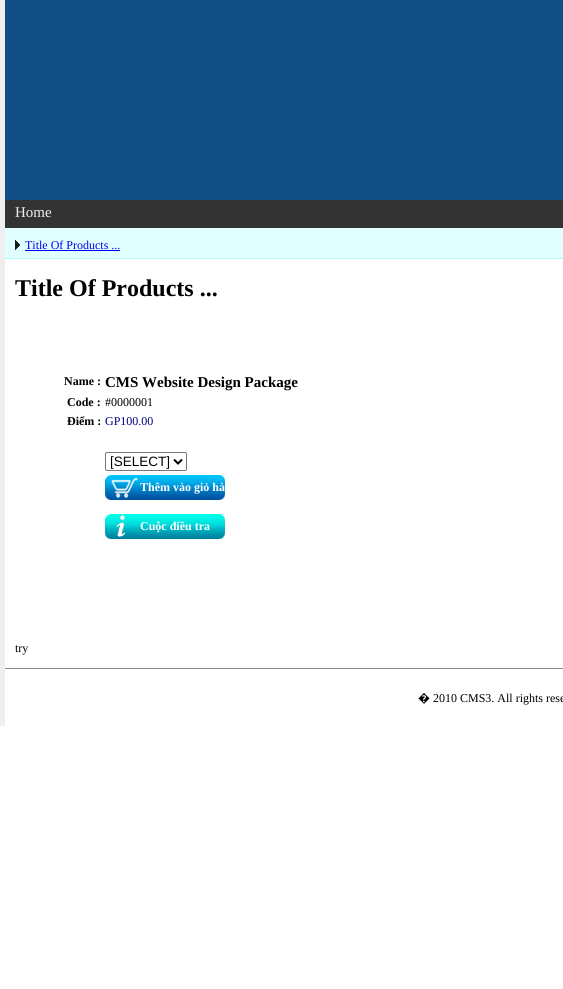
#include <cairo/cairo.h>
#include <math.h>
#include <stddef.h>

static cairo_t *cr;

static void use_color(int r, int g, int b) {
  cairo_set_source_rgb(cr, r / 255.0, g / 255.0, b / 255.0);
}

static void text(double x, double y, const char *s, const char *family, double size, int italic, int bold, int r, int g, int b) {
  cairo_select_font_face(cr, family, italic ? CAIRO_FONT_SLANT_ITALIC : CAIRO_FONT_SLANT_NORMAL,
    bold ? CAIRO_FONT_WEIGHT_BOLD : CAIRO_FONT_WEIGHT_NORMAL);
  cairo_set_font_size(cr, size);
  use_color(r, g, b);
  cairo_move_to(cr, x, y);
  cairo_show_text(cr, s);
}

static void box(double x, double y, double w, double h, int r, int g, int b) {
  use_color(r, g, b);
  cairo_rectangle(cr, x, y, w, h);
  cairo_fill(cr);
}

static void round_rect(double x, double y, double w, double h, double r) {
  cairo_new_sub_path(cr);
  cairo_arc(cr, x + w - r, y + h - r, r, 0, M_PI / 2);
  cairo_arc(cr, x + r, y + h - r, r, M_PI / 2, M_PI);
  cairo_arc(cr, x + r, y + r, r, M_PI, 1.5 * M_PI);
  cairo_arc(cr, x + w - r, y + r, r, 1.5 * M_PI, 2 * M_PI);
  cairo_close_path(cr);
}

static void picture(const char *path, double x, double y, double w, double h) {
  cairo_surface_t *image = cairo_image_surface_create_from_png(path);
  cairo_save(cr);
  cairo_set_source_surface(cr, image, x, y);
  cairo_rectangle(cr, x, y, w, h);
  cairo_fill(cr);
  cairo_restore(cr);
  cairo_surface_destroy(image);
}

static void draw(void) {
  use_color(255, 255, 255);
  cairo_paint(cr);
  box(0, 0, 5, 726, 239, 239, 239);
  box(5, 0, 558, 200, 17, 78, 134);
  box(5, 200, 558, 28, 51, 51, 51);
  box(5, 228, 558, 30, 225, 255, 255);
  box(5, 258, 558, 1, 176, 255, 255);
  picture("img_01.png", 15, 240, 5, 10);
  box(25, 250, 95, 1, 0, 0, 238);
  round_rect(105.5, 452.5, 81, 18, 1.5);
  use_color(118, 118, 118);
  cairo_set_line_width(cr, 1);
  cairo_stroke(cr);
  cairo_new_path(cr);
  cairo_move_to(cr, 174, 459.5);
  cairo_line_to(cr, 178, 463.5);
  cairo_line_to(cr, 182, 459.5);
  use_color(0, 0, 0);
  cairo_set_line_width(cr, 2);
  cairo_stroke(cr);
  picture("img_02.png", 105, 475, 120, 25);
  picture("img_03.png", 105, 514, 120, 25);
  box(5, 668, 558, 1, 136, 136, 136);
  text(15, 217, "Home", "Liberation Serif", 15, 0, 0, 239, 239, 239);
  text(25, 249, "Title Of Products ...", "Liberation Serif", 12, 0, 0, 0, 0, 238);
  text(15, 296, "Title Of Products ...", "Liberation Serif", 24, 0, 1, 0, 0, 0);
  text(64, 385, "Name :", "Liberation Serif", 12, 0, 1, 0, 0, 0);
  text(105, 387, "CMS Website Design Package", "Liberation Serif", 15, 0, 1, 0, 0, 0);
  text(67, 406, "Code :", "Liberation Serif", 12, 0, 1, 0, 0, 0);
  text(105, 406, "#0000001", "Liberation Serif", 12, 0, 0, 0, 0, 0);
  text(67, 425, "Điểm :", "Liberation Serif", 12, 0, 1, 0, 0, 0);
  text(105, 425, "GP100.00", "Liberation Serif", 12, 0, 0, 0, 0, 128);
  text(110, 466, "[SELECT]", "Liberation Sans", 13.5, 0, 0, 0, 0, 0);
  text(140, 491, "Thêm vào giỏ hà", "Liberation Serif", 12, 0, 1, 255, 255, 255);
  text(140, 530, "Cuộc điều tra", "Liberation Serif", 12, 0, 1, 255, 255, 255);
  text(15, 652, "try", "Liberation Serif", 12, 0, 0, 0, 0, 0);
  text(418, 702, "�", "Noto Sans", 12, 0, 0, 0, 0, 0);
  text(433, 702, "2010 CMS3. All rights rese", "Liberation Serif", 12, 0, 0, 0, 0, 0);
}

int main(void) {
  cairo_surface_t *surface = cairo_image_surface_create(CAIRO_FORMAT_RGB24, 563, 989);
  cr = cairo_create(surface);
  cairo_font_options_t *options = cairo_font_options_create();
  cairo_font_options_set_hint_metrics(options, CAIRO_HINT_METRICS_OFF);
  cairo_font_options_set_hint_style(options, CAIRO_HINT_STYLE_NONE);
  cairo_set_font_options(cr, options);
  cairo_set_miter_limit(cr, 4);
  draw();
  cairo_surface_write_to_png(surface, "out.png");
  cairo_font_options_destroy(options);
  cairo_destroy(cr);
  cairo_surface_destroy(surface);
  return 0;
}
